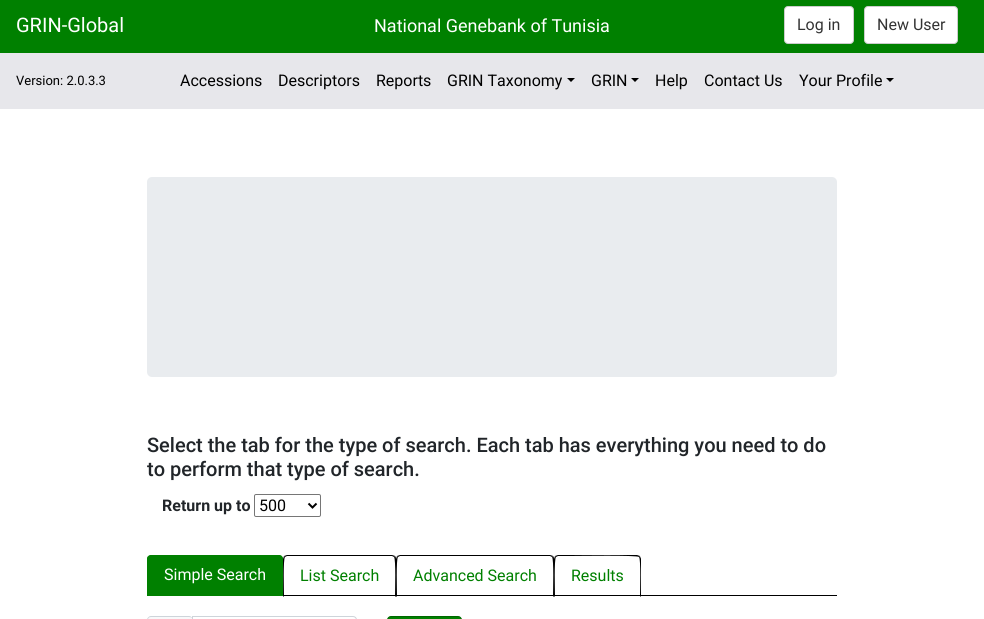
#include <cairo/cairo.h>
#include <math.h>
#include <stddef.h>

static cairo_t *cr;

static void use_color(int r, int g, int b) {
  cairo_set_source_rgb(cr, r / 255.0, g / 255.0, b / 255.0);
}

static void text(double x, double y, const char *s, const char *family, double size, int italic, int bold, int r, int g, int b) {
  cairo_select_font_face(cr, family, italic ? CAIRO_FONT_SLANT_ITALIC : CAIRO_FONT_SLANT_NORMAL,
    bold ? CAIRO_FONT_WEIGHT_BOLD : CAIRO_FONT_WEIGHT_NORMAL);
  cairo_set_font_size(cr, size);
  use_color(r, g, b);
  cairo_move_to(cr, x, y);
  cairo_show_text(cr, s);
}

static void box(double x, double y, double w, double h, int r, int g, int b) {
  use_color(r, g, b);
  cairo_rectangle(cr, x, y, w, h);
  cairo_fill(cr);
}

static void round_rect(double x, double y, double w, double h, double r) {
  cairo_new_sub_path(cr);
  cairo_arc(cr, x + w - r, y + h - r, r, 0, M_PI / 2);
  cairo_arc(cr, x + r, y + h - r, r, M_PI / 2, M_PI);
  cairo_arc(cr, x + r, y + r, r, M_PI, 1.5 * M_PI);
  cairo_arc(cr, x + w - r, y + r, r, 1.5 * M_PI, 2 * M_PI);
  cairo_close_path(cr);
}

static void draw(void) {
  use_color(255, 255, 255);
  cairo_paint(cr);
  box(0, 0, 984, 53, 0, 128, 0);
  use_color(255, 255, 255);
  round_rect(784.5, 6.5, 69, 37, 3.5);
  cairo_fill_preserve(cr);
  use_color(204, 204, 204);
  cairo_set_line_width(cr, 1);
  cairo_stroke(cr);
  use_color(255, 255, 255);
  round_rect(864.5, 6.5, 93, 37, 3.5);
  cairo_fill_preserve(cr);
  use_color(204, 204, 204);
  cairo_stroke(cr);
  box(0, 53, 984, 56, 231, 231, 235);
  use_color(0, 0, 0);
  cairo_new_path(cr);
  cairo_move_to(cr, 567, 78);
  cairo_line_to(cr, 575, 78);
  cairo_line_to(cr, 571, 82);
  cairo_close_path(cr);
  cairo_fill(cr);
  cairo_new_path(cr);
  cairo_move_to(cr, 631, 78);
  cairo_line_to(cr, 639, 78);
  cairo_line_to(cr, 635, 82);
  cairo_close_path(cr);
  cairo_fill(cr);
  cairo_new_path(cr);
  cairo_move_to(cr, 886, 78);
  cairo_line_to(cr, 894, 78);
  cairo_line_to(cr, 890, 82);
  cairo_close_path(cr);
  cairo_fill(cr);
  use_color(233, 236, 239);
  round_rect(147, 177, 690, 200, 5);
  cairo_fill(cr);
  round_rect(254.5, 494.5, 66, 22, 1.5);
  use_color(118, 118, 118);
  cairo_stroke(cr);
  cairo_new_path(cr);
  cairo_move_to(cr, 308.5, 503.5);
  cairo_line_to(cr, 312.5, 507.5);
  cairo_line_to(cr, 316.5, 503.5);
  use_color(0, 0, 0);
  cairo_set_line_width(cr, 2);
  cairo_stroke(cr);
  box(283, 595, 554, 1, 0, 0, 0);
  use_color(0, 128, 0);
  cairo_new_path(cr);
  cairo_move_to(cr, 151, 555);
  cairo_line_to(cr, 279, 555);
  cairo_curve_to(cr, 281, 555, 283, 557, 283, 559);
  cairo_line_to(cr, 283, 596);
  cairo_line_to(cr, 147, 596);
  cairo_line_to(cr, 147, 559);
  cairo_curve_to(cr, 147, 557, 149, 555, 151, 555);
  cairo_close_path(cr);
  cairo_fill(cr);
  cairo_new_path(cr);
  cairo_move_to(cr, 151, 555);
  cairo_line_to(cr, 148, 556);
  cairo_line_to(cr, 149, 557);
  cairo_line_to(cr, 151, 556);
  cairo_line_to(cr, 279, 556);
  cairo_line_to(cr, 281, 557);
  cairo_line_to(cr, 282, 556);
  cairo_line_to(cr, 279, 555);
  cairo_close_path(cr);
  cairo_fill(cr);
  cairo_new_path(cr);
  cairo_move_to(cr, 283, 596);
  cairo_line_to(cr, 283, 559);
  cairo_curve_to(cr, 283, 558, 282.5, 557, 282, 556);
  cairo_line_to(cr, 281, 557);
  cairo_curve_to(cr, 282, 557, 282, 558, 282, 559);
  cairo_line_to(cr, 282, 595);
  cairo_close_path(cr);
  cairo_fill(cr);
  cairo_new_path(cr);
  cairo_move_to(cr, 147, 596);
  cairo_line_to(cr, 148, 595);
  cairo_line_to(cr, 148, 559);
  cairo_curve_to(cr, 148, 558, 148, 557, 149, 557);
  cairo_line_to(cr, 148, 556);
  cairo_curve_to(cr, 147.5, 557, 147, 558, 147, 559);
  cairo_close_path(cr);
  cairo_fill(cr);
  use_color(0, 0, 0);
  cairo_new_path(cr);
  cairo_move_to(cr, 287, 555);
  cairo_line_to(cr, 284, 556);
  cairo_line_to(cr, 285, 557);
  cairo_line_to(cr, 287, 556);
  cairo_line_to(cr, 392, 556);
  cairo_line_to(cr, 394, 557);
  cairo_line_to(cr, 395, 556);
  cairo_line_to(cr, 392, 555);
  cairo_close_path(cr);
  cairo_fill(cr);
  cairo_new_path(cr);
  cairo_move_to(cr, 396, 597);
  cairo_line_to(cr, 396, 559);
  cairo_curve_to(cr, 396, 558, 396, 557, 395, 556);
  cairo_line_to(cr, 394, 557);
  cairo_curve_to(cr, 396, 559, 395, 591, 395, 596);
  cairo_close_path(cr);
  cairo_fill(cr);
  cairo_new_path(cr);
  cairo_move_to(cr, 283, 597);
  cairo_line_to(cr, 284, 596);
  cairo_curve_to(cr, 284, 591, 283, 559, 285, 557);
  cairo_line_to(cr, 284, 556);
  cairo_line_to(cr, 283, 559);
  cairo_close_path(cr);
  cairo_fill(cr);
  cairo_new_path(cr);
  cairo_move_to(cr, 400, 555);
  cairo_line_to(cr, 397, 556);
  cairo_line_to(cr, 398, 557);
  cairo_line_to(cr, 400, 556);
  cairo_line_to(cr, 550, 556);
  cairo_line_to(cr, 552, 557);
  cairo_line_to(cr, 553, 556);
  cairo_line_to(cr, 550, 555);
  cairo_close_path(cr);
  cairo_fill(cr);
  cairo_new_path(cr);
  cairo_move_to(cr, 554, 597);
  cairo_line_to(cr, 554, 559);
  cairo_curve_to(cr, 554, 558, 554, 557, 553, 556);
  cairo_line_to(cr, 552, 557);
  cairo_curve_to(cr, 554, 559, 553, 591, 553, 596);
  cairo_close_path(cr);
  cairo_fill(cr);
  cairo_new_path(cr);
  cairo_move_to(cr, 396, 597);
  cairo_line_to(cr, 397, 596);
  cairo_curve_to(cr, 397, 591, 396, 559, 398, 557);
  cairo_line_to(cr, 397, 556);
  cairo_line_to(cr, 396, 559);
  cairo_close_path(cr);
  cairo_fill(cr);
  cairo_new_path(cr);
  cairo_move_to(cr, 558, 555);
  cairo_line_to(cr, 555, 556);
  cairo_line_to(cr, 556, 557);
  cairo_line_to(cr, 558, 556);
  cairo_line_to(cr, 571, 556);
  cairo_curve_to(cr, 578, 556, 637, 555, 639, 557);
  cairo_line_to(cr, 640, 556);
  cairo_line_to(cr, 637, 555);
  cairo_close_path(cr);
  cairo_fill(cr);
  cairo_new_path(cr);
  cairo_move_to(cr, 641, 597);
  cairo_line_to(cr, 641, 559);
  cairo_curve_to(cr, 641, 558, 640, 557, 640, 556);
  cairo_line_to(cr, 639, 557);
  cairo_curve_to(cr, 641, 559, 640, 591, 640, 596);
  cairo_close_path(cr);
  cairo_fill(cr);
  cairo_new_path(cr);
  cairo_move_to(cr, 554, 597);
  cairo_line_to(cr, 555, 596);
  cairo_curve_to(cr, 555, 591, 554, 559, 556, 557);
  cairo_line_to(cr, 555, 556);
  cairo_line_to(cr, 554, 559);
  cairo_close_path(cr);
  cairo_fill(cr);
  use_color(248, 249, 250);
  round_rect(147, 616, 46, 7, 4);
  cairo_fill(cr);
  use_color(206, 212, 218);
  cairo_set_fill_rule(cr, CAIRO_FILL_RULE_EVEN_ODD);
  cairo_new_path(cr);
  cairo_move_to(cr, 151, 616);
  cairo_line_to(cr, 189, 616);
  cairo_curve_to(cr, 191, 616, 193, 618, 193, 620);
  cairo_line_to(cr, 193, 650);
  cairo_curve_to(cr, 193, 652, 191, 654, 189, 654);
  cairo_line_to(cr, 151, 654);
  cairo_curve_to(cr, 149, 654, 147, 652, 147, 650);
  cairo_line_to(cr, 147, 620);
  cairo_curve_to(cr, 147, 618, 149, 616, 151, 616);
  cairo_close_path(cr);
  cairo_move_to(cr, 151, 617);
  cairo_line_to(cr, 189, 617);
  cairo_curve_to(cr, 191, 617, 193, 618, 193, 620);
  cairo_line_to(cr, 193, 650);
  cairo_curve_to(cr, 193, 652, 191, 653, 189, 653);
  cairo_line_to(cr, 151, 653);
  cairo_curve_to(cr, 149, 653, 148, 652, 148, 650);
  cairo_line_to(cr, 148, 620);
  cairo_curve_to(cr, 148, 618, 149, 617, 151, 617);
  cairo_close_path(cr);
  cairo_fill(cr);
  cairo_new_path(cr);
  cairo_move_to(cr, 192.5, 616.5);
  cairo_line_to(cr, 353, 616.5);
  cairo_curve_to(cr, 355, 616.5, 356.5, 618, 356.5, 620);
  cairo_curve_to(cr, 356.5, 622, 355, 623.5, 353, 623.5);
  cairo_line_to(cr, 192.5, 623.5);
  cairo_close_path(cr);
  cairo_set_line_width(cr, 1);
  cairo_stroke(cr);
  use_color(0, 128, 0);
  round_rect(387.5, 616.5, 74, 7, 3.5);
  cairo_fill_preserve(cr);
  use_color(0, 102, 0);
  cairo_stroke(cr);
  text(16, 32, "GRIN-Global", "Roboto", 20, 0, 0, 255, 255, 255);
  text(374, 32, "National Genebank of Tunisia", "Roboto", 18, 0, 0, 255, 255, 255);
  text(797, 30, "Log in", "Roboto", 16, 0, 0, 51, 51, 51);
  text(877, 30, "New User", "Roboto", 16, 0, 0, 51, 51, 51);
  text(16, 85, "Version: 2.0.3.3", "Roboto", 13, 0, 0, 0, 0, 0);
  text(180, 86, "Accessions", "Roboto", 16, 0, 0, 0, 0, 0);
  text(278, 86, "Descriptors", "Roboto", 16, 0, 0, 0, 0, 0);
  text(376, 86, "Reports", "Roboto", 16, 0, 0, 0, 0, 0);
  text(447, 86, "GRIN Taxonomy", "Roboto", 16, 0, 0, 0, 0, 0);
  text(591, 86, "GRIN", "Roboto", 16, 0, 0, 0, 0, 0);
  text(655, 86, "Help", "Roboto", 16, 0, 0, 0, 0, 0);
  text(704, 86, "Contact Us", "Roboto", 16, 0, 0, 0, 0, 0);
  text(799, 86, "Your Profile", "Roboto", 16, 0, 0, 0, 0, 0);
  text(147, 452, "Select the tab for the type of search. Each tab has everything you need to do", "Roboto Medium", 20, 0, 0, 33, 37, 41);
  text(147, 476, "to perform that type of search.", "Roboto Medium", 20, 0, 0, 33, 37, 41);
  text(162, 511, "Return up to", "Roboto", 16, 0, 1, 33, 37, 41);
  text(259, 511, "500", "Roboto", 16, 0, 0, 0, 0, 0);
  text(164, 580, "Simple Search", "Roboto", 16, 0, 0, 255, 255, 255);
  text(300, 581, "List Search", "Roboto", 16, 0, 0, 0, 128, 0);
  text(413, 581, "Advanced Search", "Roboto", 16, 0, 0, 0, 128, 0);
  text(571, 581, "Results", "Roboto", 16, 0, 0, 0, 128, 0);
}

int main(void) {
  cairo_surface_t *surface = cairo_image_surface_create(CAIRO_FORMAT_RGB24, 984, 619);
  cr = cairo_create(surface);
  cairo_font_options_t *options = cairo_font_options_create();
  cairo_font_options_set_hint_metrics(options, CAIRO_HINT_METRICS_OFF);
  cairo_font_options_set_hint_style(options, CAIRO_HINT_STYLE_NONE);
  cairo_set_font_options(cr, options);
  cairo_set_miter_limit(cr, 4);
  draw();
  cairo_surface_write_to_png(surface, "out.png");
  cairo_font_options_destroy(options);
  cairo_destroy(cr);
  cairo_surface_destroy(surface);
  return 0;
}
